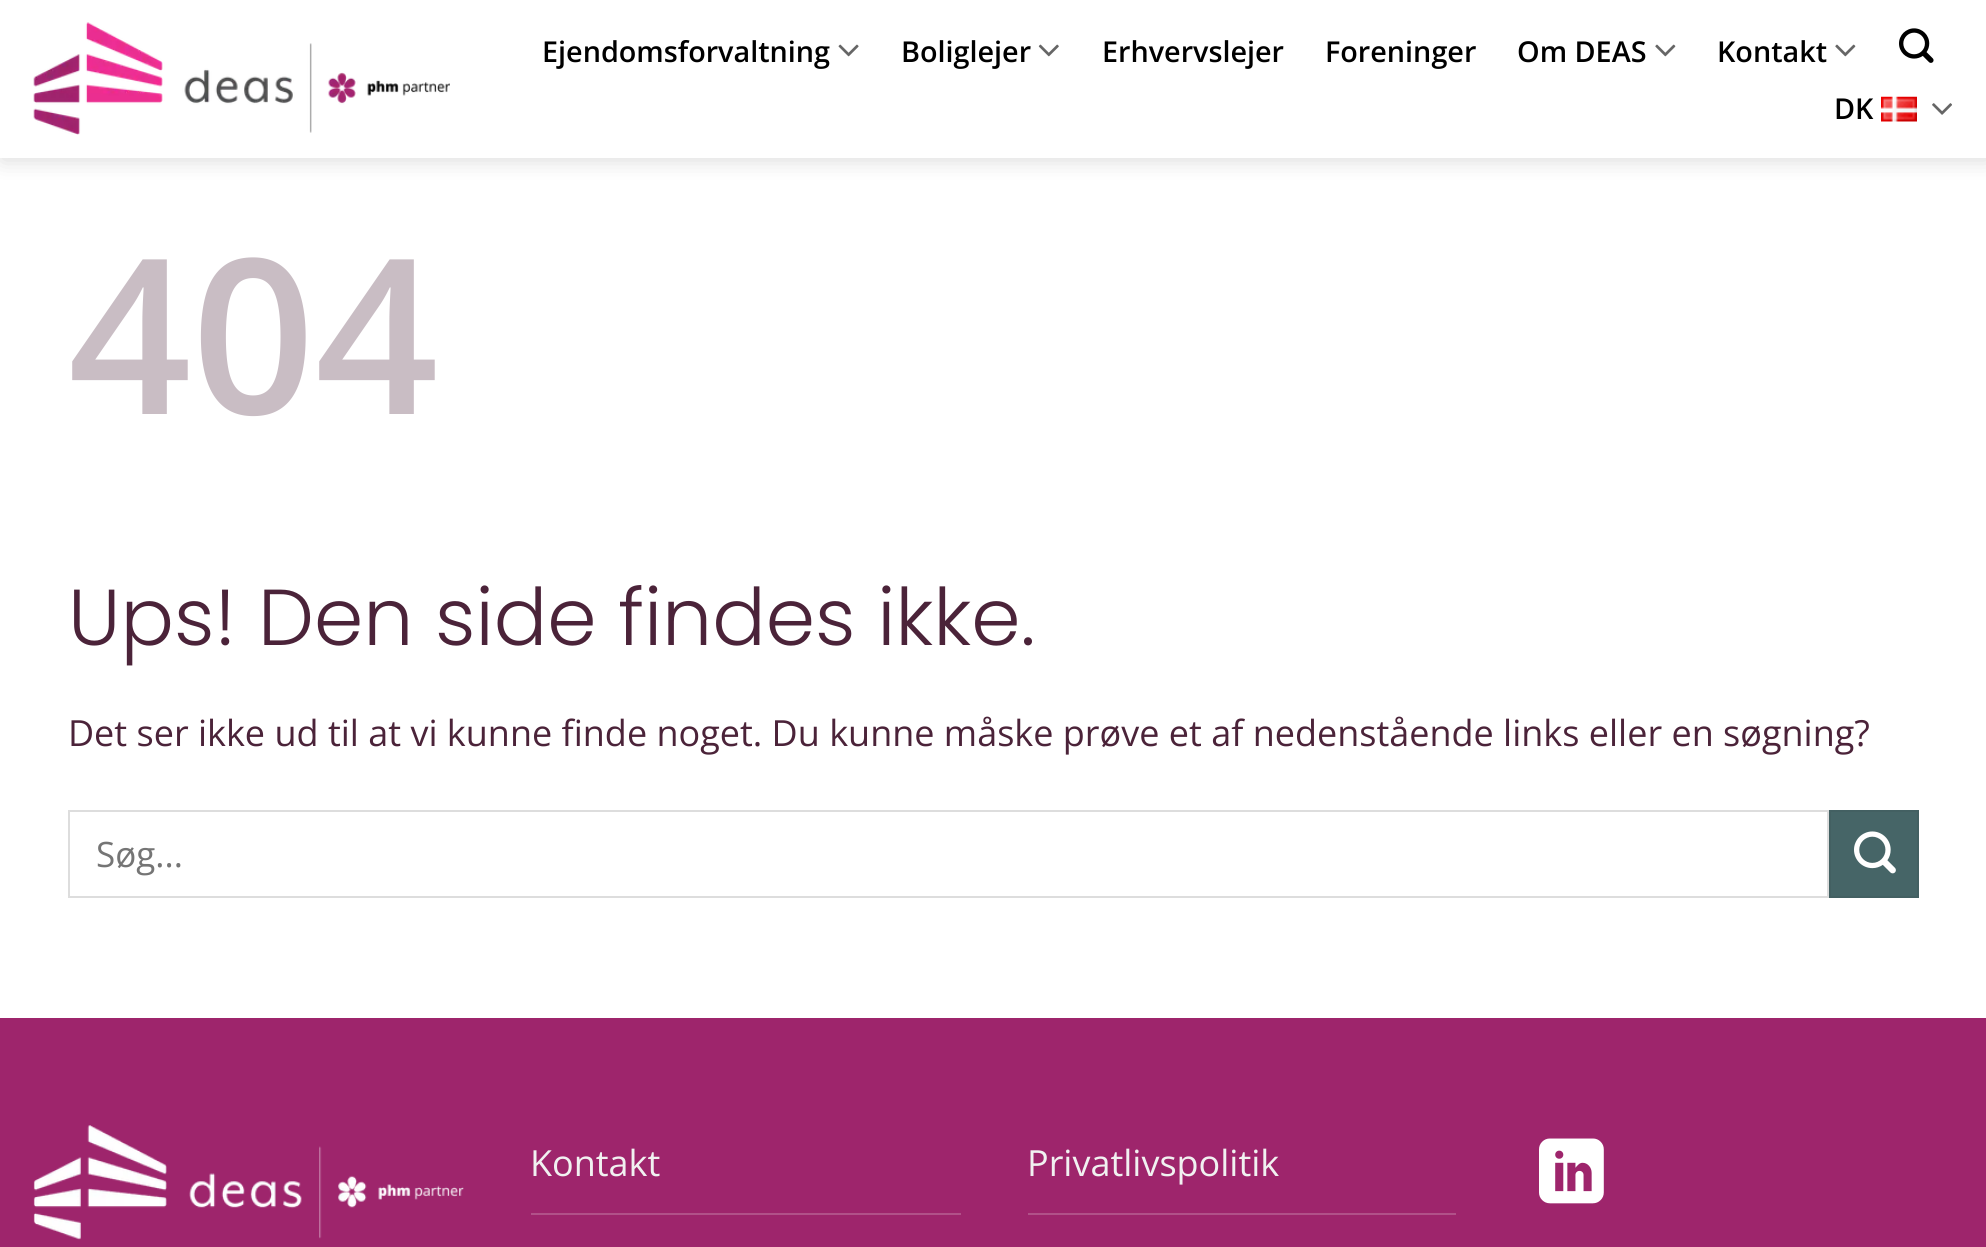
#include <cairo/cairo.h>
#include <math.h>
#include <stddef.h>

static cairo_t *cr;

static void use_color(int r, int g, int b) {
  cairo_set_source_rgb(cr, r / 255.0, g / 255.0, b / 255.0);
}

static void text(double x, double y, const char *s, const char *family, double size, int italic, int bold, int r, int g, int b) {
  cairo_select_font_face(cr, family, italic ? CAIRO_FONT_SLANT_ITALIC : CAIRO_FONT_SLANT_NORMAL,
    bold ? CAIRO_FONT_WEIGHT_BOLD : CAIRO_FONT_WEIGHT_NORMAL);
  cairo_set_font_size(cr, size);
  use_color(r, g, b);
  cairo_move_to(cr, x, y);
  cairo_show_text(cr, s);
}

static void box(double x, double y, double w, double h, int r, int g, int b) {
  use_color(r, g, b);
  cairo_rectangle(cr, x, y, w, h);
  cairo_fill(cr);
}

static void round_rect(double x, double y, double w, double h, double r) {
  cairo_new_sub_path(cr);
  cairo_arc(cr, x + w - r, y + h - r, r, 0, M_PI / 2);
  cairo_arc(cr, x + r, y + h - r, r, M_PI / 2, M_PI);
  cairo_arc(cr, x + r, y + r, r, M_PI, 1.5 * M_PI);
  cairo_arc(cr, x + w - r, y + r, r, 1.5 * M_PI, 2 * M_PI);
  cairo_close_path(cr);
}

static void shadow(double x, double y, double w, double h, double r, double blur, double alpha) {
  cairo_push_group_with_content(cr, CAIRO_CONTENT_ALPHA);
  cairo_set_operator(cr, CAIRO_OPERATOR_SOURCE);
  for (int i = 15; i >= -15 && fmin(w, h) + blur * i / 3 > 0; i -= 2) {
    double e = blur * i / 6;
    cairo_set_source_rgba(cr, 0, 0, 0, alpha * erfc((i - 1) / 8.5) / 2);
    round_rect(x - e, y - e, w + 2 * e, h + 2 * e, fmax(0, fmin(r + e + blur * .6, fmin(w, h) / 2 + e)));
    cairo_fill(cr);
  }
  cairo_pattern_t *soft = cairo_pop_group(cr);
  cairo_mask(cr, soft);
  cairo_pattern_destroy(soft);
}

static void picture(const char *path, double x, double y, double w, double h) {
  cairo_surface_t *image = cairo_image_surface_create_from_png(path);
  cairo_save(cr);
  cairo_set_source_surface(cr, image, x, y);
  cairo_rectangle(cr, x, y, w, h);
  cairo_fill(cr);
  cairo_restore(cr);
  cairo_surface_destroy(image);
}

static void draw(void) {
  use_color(255, 255, 255);
  cairo_paint(cr);
  use_color(0, 0, 0);
  shadow(2, 2, 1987, 158, 0, 11, 0.15);
  box(0, 0, 1986, 158, 255, 255, 255);
  picture("img_01.png", 33, 22, 417, 113);
  picture("img_02.png", 838, 44, 21, 13);
  picture("img_03.png", 1038, 44, 21, 13);
  picture("img_04.png", 1655, 44, 21, 13);
  picture("img_04.png", 1835, 44, 21, 13);
  picture("img_05.png", 1899, 28, 35, 35);
  picture("img_06.png", 1881, 96, 36, 26);
  picture("img_07.png", 1932, 103, 20, 12);
  cairo_rectangle(cr, 69, 811, 1759, 86);
  use_color(221, 221, 221);
  cairo_stroke(cr);
  use_color(70, 101, 103);
  cairo_rectangle(cr, 1830, 811, 88, 86);
  cairo_fill_preserve(cr);
  use_color(67, 96, 98);
  cairo_stroke(cr);
  picture("img_08.png", 1854, 831, 42, 43);
  box(0, 1018, 1986, 229, 158, 37, 108);
  picture("img_09.png", 33, 1125, 431, 115);
  box(531, 1213, 430, 2, 177, 81, 137);
  box(1028, 1213, 428, 2, 177, 81, 137);
  picture("img_10.png", 1539, 1138, 65, 66);
  text(542, 62, "Ejendomsforvaltning", "Open Sans SemiBold", 28.75, 0, 0, 0, 0, 0);
  text(901, 62, "Boliglejer", "Open Sans SemiBold", 28.75, 0, 0, 0, 0, 0);
  text(1102, 62, "Erhvervslejer", "Open Sans SemiBold", 28.75, 0, 0, 0, 0, 0);
  text(1325, 62, "Foreninger", "Open Sans SemiBold", 28.75, 0, 0, 0, 0, 0);
  text(1517, 62, "Om DEAS", "Open Sans SemiBold", 28.75, 0, 0, 0, 0, 0);
  text(1717, 62, "Kontakt", "Open Sans SemiBold", 28.75, 0, 0, 0, 0, 0);
  text(1834, 119, "DK", "Open Sans SemiBold", 28.75, 0, 0, 0, 0, 0);
  text(68, 414, "404", "Open Sans SemiBold", 216, 0, 0, 201, 189, 196);
  text(68, 645, "Ups! Den side findes ikke.", "Poppins Light", 79.25, 0, 0, 75, 35, 57);
  text(68, 746, "Det ser ikke ud til at vi kunne finde noget. Du kunne måske prøve et af nedenstående links eller en søgning?", "Open Sans", 36, 0, 0, 75, 35, 57);
  text(96, 867, "Søg...", "Open Sans", 35, 0, 0, 117, 117, 117);
  text(530, 1176, "Kontakt", "Open Sans", 36, 0, 0, 241, 241, 241);
  text(1027, 1176, "Privatlivspolitik", "Open Sans", 36, 0, 0, 241, 241, 241);
}

int main(void) {
  cairo_surface_t *surface = cairo_image_surface_create(CAIRO_FORMAT_RGB24, 1986, 1247);
  cr = cairo_create(surface);
  cairo_font_options_t *options = cairo_font_options_create();
  cairo_font_options_set_hint_metrics(options, CAIRO_HINT_METRICS_OFF);
  cairo_font_options_set_hint_style(options, CAIRO_HINT_STYLE_NONE);
  cairo_set_font_options(cr, options);
  cairo_set_miter_limit(cr, 4);
  draw();
  cairo_surface_write_to_png(surface, "out.png");
  cairo_font_options_destroy(options);
  cairo_destroy(cr);
  cairo_surface_destroy(surface);
  return 0;
}
